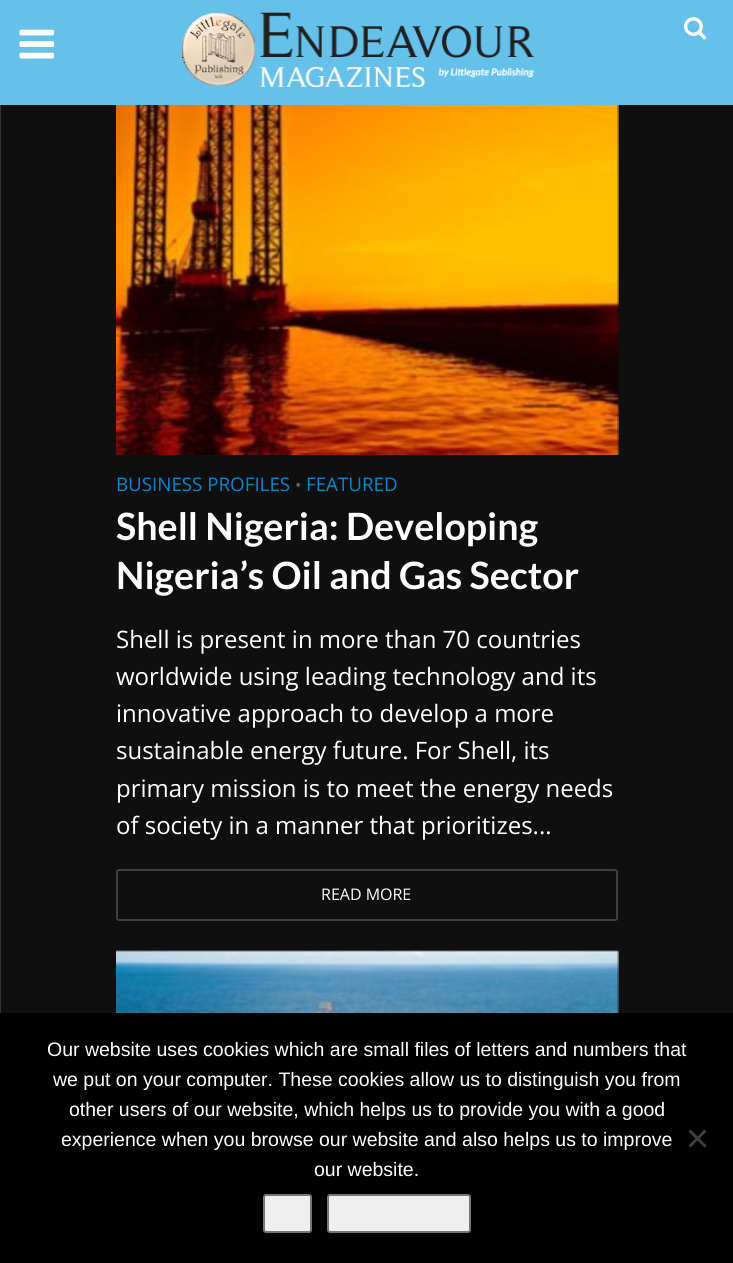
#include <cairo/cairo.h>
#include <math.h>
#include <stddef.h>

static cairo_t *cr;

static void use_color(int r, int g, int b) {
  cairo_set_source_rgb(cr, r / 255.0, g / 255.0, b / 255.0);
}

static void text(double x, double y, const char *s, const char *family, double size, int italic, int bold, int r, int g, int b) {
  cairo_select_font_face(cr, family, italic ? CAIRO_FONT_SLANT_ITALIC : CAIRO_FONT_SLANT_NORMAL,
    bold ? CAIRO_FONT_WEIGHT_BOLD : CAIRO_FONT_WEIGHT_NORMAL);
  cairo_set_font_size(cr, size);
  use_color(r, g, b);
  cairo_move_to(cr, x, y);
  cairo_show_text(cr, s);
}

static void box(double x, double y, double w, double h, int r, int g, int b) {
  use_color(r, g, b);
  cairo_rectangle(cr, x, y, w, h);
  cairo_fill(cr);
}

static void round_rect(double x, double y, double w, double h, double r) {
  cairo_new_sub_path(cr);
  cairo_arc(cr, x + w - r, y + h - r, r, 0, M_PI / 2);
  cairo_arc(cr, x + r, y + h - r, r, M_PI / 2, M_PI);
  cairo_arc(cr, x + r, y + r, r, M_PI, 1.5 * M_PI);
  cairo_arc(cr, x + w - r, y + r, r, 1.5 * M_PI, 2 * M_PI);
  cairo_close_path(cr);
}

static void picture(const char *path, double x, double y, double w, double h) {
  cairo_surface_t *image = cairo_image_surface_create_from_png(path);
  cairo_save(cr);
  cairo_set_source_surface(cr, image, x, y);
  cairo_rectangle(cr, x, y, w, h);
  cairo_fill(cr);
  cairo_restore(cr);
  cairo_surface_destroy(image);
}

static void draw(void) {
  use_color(15, 15, 15);
  cairo_paint(cr);
  box(0, 0, 733, 105, 101, 193, 234);
  picture("img_01.png", 19, 29, 36, 30);
  picture("img_02.png", 182, 12, 353, 75);
  picture("img_03.png", 684, 17, 23, 23);
  box(0, 105, 1, 908, 51, 51, 51);
  picture("img_04.png", 116, 105, 503, 350);
  round_rect(117, 870, 500, 50, 2);
  use_color(63, 63, 63);
  cairo_stroke(cr);
  picture("img_05.png", 116, 950, 503, 63);
  box(0, 1013, 733, 250, 0, 0, 0);
  use_color(64, 64, 64);
  cairo_new_path(cr);
  cairo_move_to(cr, 704.5, 1129.5);
  cairo_line_to(cr, 706.5, 1131.5);
  cairo_line_to(cr, 690.5, 1147.5);
  cairo_line_to(cr, 688.5, 1145.5);
  cairo_close_path(cr);
  cairo_fill(cr);
  cairo_new_path(cr);
  cairo_move_to(cr, 688.5, 1131.5);
  cairo_line_to(cr, 690.5, 1129.5);
  cairo_line_to(cr, 706.5, 1145.5);
  cairo_line_to(cr, 704.5, 1147.5);
  cairo_close_path(cr);
  cairo_fill(cr);
  use_color(239, 239, 239);
  round_rect(264, 1195, 47, 37, 2);
  cairo_fill_preserve(cr);
  use_color(118, 118, 118);
  cairo_stroke(cr);
  use_color(239, 239, 239);
  round_rect(328, 1195, 142, 37, 2);
  cairo_fill_preserve(cr);
  use_color(118, 118, 118);
  cairo_stroke(cr);
  text(116, 491, "BUSINESS PROFILES", "Open Sans", 18.75, 0, 0, 2, 136, 209);
  text(295, 491, "•", "Open Sans", 17, 0, 0, 96, 96, 96);
  text(306, 491, "FEATURED", "Open Sans", 18.75, 0, 0, 2, 136, 209);
  text(116, 540, "Shell Nigeria: Developing", "Lato", 37.6, 0, 1, 255, 255, 255);
  text(116, 589, "Nigeria’s Oil and Gas Sector", "Lato", 37.6, 0, 1, 255, 255, 255);
  text(116, 648, "Shell is present in more than 70 countries", "Open Sans", 24, 0, 0, 255, 255, 255);
  text(116, 685, "worldwide using leading technology and its", "Open Sans", 24, 0, 0, 255, 255, 255);
  text(116, 722, "innovative approach to develop a more", "Open Sans", 24, 0, 0, 255, 255, 255);
  text(116, 759, "sustainable energy future. For Shell, its", "Open Sans", 24, 0, 0, 255, 255, 255);
  text(116, 797, "primary mission is to meet the energy needs", "Open Sans", 24, 0, 0, 255, 255, 255);
  text(116, 834, "of society in a manner that prioritizes...", "Open Sans", 24, 0, 0, 255, 255, 255);
  text(321, 900, "READ MORE", "Open Sans", 16, 0, 0, 255, 255, 255);
  text(47, 1056, "Our website uses cookies which are small files of letters and numbers that", "Liberation Sans", 19.5, 0, 0, 255, 255, 255);
  text(53, 1086, "we put on your computer. These cookies allow us to distinguish you from", "Liberation Sans", 19.5, 0, 0, 255, 255, 255);
  text(69, 1116, "other users of our website, which helps us to provide you with a good", "Liberation Sans", 19.5, 0, 0, 255, 255, 255);
  text(61, 1146, "experience when you browse our website and also helps us to improve", "Liberation Sans", 19.5, 0, 0, 255, 255, 255);
  text(314, 1176, "our website.", "Liberation Sans", 19.5, 0, 0, 255, 255, 255);
}

int main(void) {
  cairo_surface_t *surface = cairo_image_surface_create(CAIRO_FORMAT_RGB24, 733, 1263);
  cr = cairo_create(surface);
  cairo_font_options_t *options = cairo_font_options_create();
  cairo_font_options_set_hint_metrics(options, CAIRO_HINT_METRICS_OFF);
  cairo_font_options_set_hint_style(options, CAIRO_HINT_STYLE_NONE);
  cairo_set_font_options(cr, options);
  cairo_set_miter_limit(cr, 4);
  draw();
  cairo_surface_write_to_png(surface, "out.png");
  cairo_font_options_destroy(options);
  cairo_destroy(cr);
  cairo_surface_destroy(surface);
  return 0;
}
